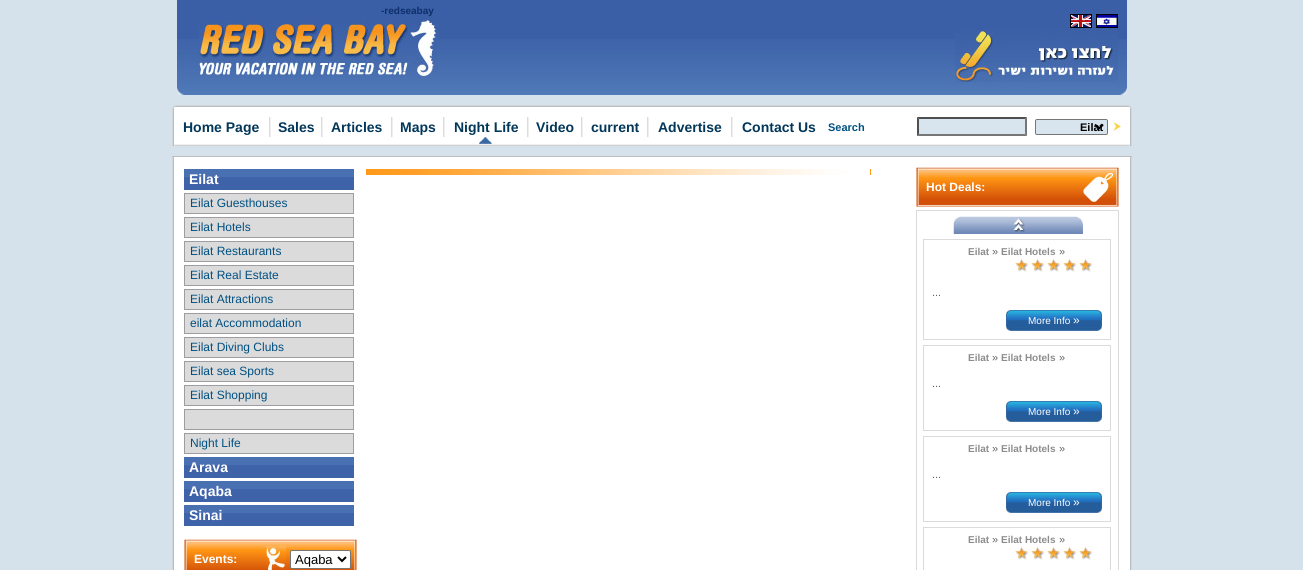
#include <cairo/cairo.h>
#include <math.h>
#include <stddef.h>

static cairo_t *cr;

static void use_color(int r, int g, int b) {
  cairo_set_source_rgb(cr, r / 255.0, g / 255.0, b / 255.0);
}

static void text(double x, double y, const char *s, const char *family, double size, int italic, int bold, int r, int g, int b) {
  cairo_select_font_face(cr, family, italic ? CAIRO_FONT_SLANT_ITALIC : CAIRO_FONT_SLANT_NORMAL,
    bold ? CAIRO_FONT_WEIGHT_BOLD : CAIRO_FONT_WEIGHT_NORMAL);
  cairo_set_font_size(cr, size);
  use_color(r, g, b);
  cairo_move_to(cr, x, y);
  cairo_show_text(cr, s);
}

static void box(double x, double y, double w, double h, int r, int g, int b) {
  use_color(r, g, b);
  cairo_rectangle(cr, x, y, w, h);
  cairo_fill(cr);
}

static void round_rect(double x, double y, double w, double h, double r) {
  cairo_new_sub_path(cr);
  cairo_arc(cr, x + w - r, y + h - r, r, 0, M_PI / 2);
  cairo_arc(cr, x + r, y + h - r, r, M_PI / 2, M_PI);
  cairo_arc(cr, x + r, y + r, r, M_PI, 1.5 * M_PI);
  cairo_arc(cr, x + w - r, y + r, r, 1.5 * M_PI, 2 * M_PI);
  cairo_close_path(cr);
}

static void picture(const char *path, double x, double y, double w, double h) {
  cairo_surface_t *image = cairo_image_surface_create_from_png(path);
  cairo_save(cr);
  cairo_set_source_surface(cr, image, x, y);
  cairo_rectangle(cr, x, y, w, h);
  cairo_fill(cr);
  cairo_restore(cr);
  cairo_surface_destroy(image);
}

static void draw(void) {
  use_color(213, 226, 235);
  cairo_paint(cr);
  box(177, 0, 950, 39, 58, 95, 166);
  picture("img_01.png", 186, 39, 932, 56);
  picture("img_02.png", 199, 19, 239, 58);
  picture("img_03.png", 1070, 14, 22, 14);
  picture("img_04.png", 1096, 14, 22, 14);
  picture("img_05.png", 955, 30, 163, 52);
  picture("img_06.png", 177, 39, 9, 56);
  picture("img_07.png", 1118, 39, 9, 56);
  box(174, 107, 956, 37, 255, 255, 255);
  picture("img_08.png", 172, 105, 4, 4);
  picture("img_09.png", 176, 105, 952, 2);
  picture("img_10.png", 1128, 105, 4, 4);
  picture("img_11.png", 172, 109, 2, 35);
  picture("img_12.png", 269, 117, 2, 20);
  picture("img_12.png", 321, 117, 2, 20);
  picture("img_12.png", 391, 117, 2, 20);
  picture("img_12.png", 443, 117, 2, 20);
  picture("img_13.png", 479, 137, 13, 7);
  picture("img_12.png", 527, 117, 2, 20);
  picture("img_12.png", 581, 117, 2, 20);
  picture("img_12.png", 647, 117, 2, 20);
  picture("img_12.png", 731, 117, 2, 20);
  box(917, 117, 110, 19, 216, 229, 238);
  use_color(79, 79, 79);
  cairo_new_path(cr);
  cairo_move_to(cr, 917, 117);
  cairo_line_to(cr, 1027, 117);
  cairo_line_to(cr, 1025, 119);
  cairo_line_to(cr, 919, 119);
  cairo_close_path(cr);
  cairo_fill(cr);
  use_color(118, 118, 118);
  cairo_new_path(cr);
  cairo_move_to(cr, 1027, 117);
  cairo_line_to(cr, 1027, 136);
  cairo_line_to(cr, 1025, 134);
  cairo_line_to(cr, 1025, 119);
  cairo_close_path(cr);
  cairo_fill(cr);
  cairo_new_path(cr);
  cairo_move_to(cr, 1027, 136);
  cairo_line_to(cr, 917, 136);
  cairo_line_to(cr, 919, 134);
  cairo_line_to(cr, 1025, 134);
  cairo_close_path(cr);
  cairo_fill(cr);
  use_color(79, 79, 79);
  cairo_new_path(cr);
  cairo_move_to(cr, 917, 136);
  cairo_line_to(cr, 917, 117);
  cairo_line_to(cr, 919, 119);
  cairo_line_to(cr, 919, 134);
  cairo_close_path(cr);
  cairo_fill(cr);
  use_color(216, 229, 238);
  round_rect(1035.5, 119.5, 72, 15, 1.5);
  cairo_fill_preserve(cr);
  use_color(118, 118, 118);
  cairo_set_line_width(cr, 1);
  cairo_stroke(cr);
  cairo_new_path(cr);
  cairo_move_to(cr, 1095, 124.5);
  cairo_line_to(cr, 1099, 128.5);
  cairo_line_to(cr, 1103, 124.5);
  use_color(0, 0, 0);
  cairo_set_line_width(cr, 2);
  cairo_stroke(cr);
  picture("img_14.png", 1112, 119, 9, 15);
  picture("img_15.png", 1130, 109, 2, 35);
  picture("img_16.png", 172, 144, 4, 2);
  picture("img_17.png", 176, 144, 952, 2);
  picture("img_18.png", 1128, 144, 4, 2);
  box(174, 157, 956, 413, 255, 255, 255);
  box(172, 156, 960, 1, 186, 190, 193);
  picture("img_19.png", 172, 157, 2, 413);
  picture("img_20.png", 366, 169, 505, 6);
  picture("img_21.png", 184, 169, 170, 21);
  use_color(219, 219, 219);
  cairo_rectangle(cr, 184.5, 193.5, 169, 20);
  cairo_fill_preserve(cr);
  use_color(160, 157, 162);
  cairo_set_line_width(cr, 1);
  cairo_stroke(cr);
  use_color(219, 219, 219);
  cairo_rectangle(cr, 184.5, 217.5, 169, 20);
  cairo_fill_preserve(cr);
  use_color(160, 157, 162);
  cairo_stroke(cr);
  use_color(219, 219, 219);
  cairo_rectangle(cr, 184.5, 241.5, 169, 20);
  cairo_fill_preserve(cr);
  use_color(160, 157, 162);
  cairo_stroke(cr);
  use_color(219, 219, 219);
  cairo_rectangle(cr, 184.5, 265.5, 169, 20);
  cairo_fill_preserve(cr);
  use_color(160, 157, 162);
  cairo_stroke(cr);
  use_color(219, 219, 219);
  cairo_rectangle(cr, 184.5, 289.5, 169, 20);
  cairo_fill_preserve(cr);
  use_color(160, 157, 162);
  cairo_stroke(cr);
  use_color(219, 219, 219);
  cairo_rectangle(cr, 184.5, 313.5, 169, 20);
  cairo_fill_preserve(cr);
  use_color(160, 157, 162);
  cairo_stroke(cr);
  use_color(219, 219, 219);
  cairo_rectangle(cr, 184.5, 337.5, 169, 20);
  cairo_fill_preserve(cr);
  use_color(160, 157, 162);
  cairo_stroke(cr);
  use_color(219, 219, 219);
  cairo_rectangle(cr, 184.5, 361.5, 169, 20);
  cairo_fill_preserve(cr);
  use_color(160, 157, 162);
  cairo_stroke(cr);
  use_color(219, 219, 219);
  cairo_rectangle(cr, 184.5, 385.5, 169, 20);
  cairo_fill_preserve(cr);
  use_color(160, 157, 162);
  cairo_stroke(cr);
  use_color(219, 219, 219);
  cairo_rectangle(cr, 184.5, 409.5, 169, 20);
  cairo_fill_preserve(cr);
  use_color(160, 157, 162);
  cairo_stroke(cr);
  use_color(219, 219, 219);
  cairo_rectangle(cr, 184.5, 433.5, 169, 20);
  cairo_fill_preserve(cr);
  use_color(160, 157, 162);
  cairo_stroke(cr);
  picture("img_21.png", 184, 457, 170, 21);
  picture("img_21.png", 184, 481, 170, 21);
  picture("img_21.png", 184, 505, 170, 21);
  picture("img_22.png", 184, 539, 3, 31);
  picture("img_23.png", 187, 539, 167, 31);
  picture("img_24.png", 266, 546, 20, 24);
  use_color(255, 255, 255);
  round_rect(290.5, 550.5, 60, 18, 1.5);
  cairo_fill_preserve(cr);
  use_color(118, 118, 118);
  cairo_stroke(cr);
  cairo_new_path(cr);
  cairo_move_to(cr, 338, 557);
  cairo_line_to(cr, 342, 561);
  cairo_line_to(cr, 346, 557);
  use_color(0, 0, 0);
  cairo_set_line_width(cr, 2);
  cairo_stroke(cr);
  picture("img_25.png", 354, 539, 3, 31);
  picture("img_26.png", 916, 167, 3, 40);
  picture("img_27.png", 919, 167, 197, 40);
  picture("img_28.png", 1083, 173, 30, 29);
  picture("img_29.png", 1116, 167, 3, 40);
  cairo_rectangle(cr, 916.5, 210.5, 202, 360);
  use_color(219, 219, 219);
  cairo_set_line_width(cr, 1);
  cairo_stroke(cr);
  picture("img_30.png", 953, 216, 130, 18);
  cairo_rectangle(cr, 923.5, 239.5, 187, 100);
  cairo_stroke(cr);
  picture("img_31.png", 1015, 259, 13, 13);
  picture("img_31.png", 1031, 259, 13, 13);
  picture("img_31.png", 1047, 259, 13, 13);
  picture("img_31.png", 1063, 259, 13, 13);
  picture("img_31.png", 1079, 259, 13, 13);
  picture("img_32.png", 1006, 310, 5, 21);
  picture("img_33.png", 1011, 310, 86, 21);
  picture("img_34.png", 1097, 310, 5, 21);
  cairo_rectangle(cr, 923.5, 345.5, 187, 85);
  cairo_stroke(cr);
  picture("img_32.png", 1006, 401, 5, 21);
  picture("img_33.png", 1011, 401, 86, 21);
  picture("img_34.png", 1097, 401, 5, 21);
  cairo_rectangle(cr, 923.5, 436.5, 187, 85);
  cairo_stroke(cr);
  picture("img_32.png", 1006, 492, 5, 21);
  picture("img_33.png", 1011, 492, 86, 21);
  picture("img_34.png", 1097, 492, 5, 21);
  cairo_rectangle(cr, 923.5, 527.5, 187, 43);
  cairo_stroke(cr);
  picture("img_31.png", 1015, 547, 13, 13);
  picture("img_31.png", 1031, 547, 13, 13);
  picture("img_31.png", 1047, 547, 13, 13);
  picture("img_31.png", 1063, 547, 13, 13);
  picture("img_31.png", 1079, 547, 13, 13);
  picture("img_35.png", 1130, 157, 2, 413);
  text(381, 14, "-redseabay", "Liberation Sans", 10, 0, 1, 14, 46, 105);
  text(183, 132, "Home Page", "Liberation Sans", 14, 0, 1, 2, 55, 89);
  text(278, 132, "Sales", "Liberation Sans", 14, 0, 1, 2, 55, 89);
  text(331, 132, "Articles", "Liberation Sans", 14, 0, 1, 2, 55, 89);
  text(400, 132, "Maps", "Liberation Sans", 14, 0, 1, 2, 55, 89);
  text(454, 132, "Night Life", "Liberation Sans", 14, 0, 1, 2, 55, 89);
  text(536, 132, "Video", "Liberation Sans", 14, 0, 1, 2, 55, 89);
  text(591, 132, "current", "Liberation Sans", 14, 0, 1, 2, 55, 89);
  text(658, 132, "Advertise", "Liberation Sans", 14, 0, 1, 2, 55, 89);
  text(742, 132, "Contact Us", "Liberation Sans", 14, 0, 1, 2, 55, 89);
  text(828, 131, "Search", "Liberation Sans", 11, 0, 1, 0, 80, 130);
  text(1080, 131, "Eilat", "Liberation Sans", 11, 0, 1, 0, 0, 0);
  text(189, 184, "Eilat", "Liberation Sans", 14, 0, 1, 255, 255, 255);
  text(190, 207, "Eilat Guesthouses", "Liberation Sans", 12, 0, 0, 0, 80, 130);
  text(190, 231, "Eilat Hotels", "Liberation Sans", 12, 0, 0, 0, 80, 130);
  text(190, 255, "Eilat Restaurants", "Liberation Sans", 12, 0, 0, 0, 80, 130);
  text(190, 279, "Eilat Real Estate", "Liberation Sans", 12, 0, 0, 0, 80, 130);
  text(190, 303, "Eilat Attractions", "Liberation Sans", 12, 0, 0, 0, 80, 130);
  text(190, 327, "eilat Accommodation", "Liberation Sans", 12, 0, 0, 0, 80, 130);
  text(190, 351, "Eilat Diving Clubs", "Liberation Sans", 12, 0, 0, 0, 80, 130);
  text(190, 375, "Eilat sea Sports", "Liberation Sans", 12, 0, 0, 0, 80, 130);
  text(190, 399, "Eilat Shopping", "Liberation Sans", 12, 0, 0, 0, 80, 130);
  text(190, 447, "Night Life", "Liberation Sans", 12, 0, 0, 0, 80, 130);
  text(189, 472, "Arava", "Liberation Sans", 14, 0, 1, 255, 255, 255);
  text(189, 496, "Aqaba", "Liberation Sans", 14, 0, 1, 255, 255, 255);
  text(189, 520, "Sinai", "Liberation Sans", 14, 0, 1, 255, 255, 255);
  text(194, 563, "Events:", "Liberation Sans", 12, 0, 1, 255, 255, 255);
  text(295, 564, "Aqaba", "Liberation Sans", 13, 0, 0, 0, 0, 0);
  text(926, 191, "Hot Deals:", "Liberation Sans", 12, 0, 1, 255, 255, 255);
  text(968, 255, "Eilat", "Liberation Sans", 10, 0, 1, 141, 141, 141);
  text(992, 255, "»", "Liberation Sans", 11, 0, 0, 100, 100, 100);
  text(1001, 255, "Eilat Hotels", "Liberation Sans", 10, 0, 1, 141, 141, 141);
  text(1059, 255, "»", "Liberation Sans", 11, 0, 0, 100, 100, 100);
  text(932, 296, "...", "Liberation Sans", 11, 0, 0, 100, 100, 100);
  text(1028, 324, "More Info", "Liberation Sans", 10, 0, 0, 255, 255, 255);
  text(1073, 324, "»", "Liberation Sans", 12, 0, 0, 255, 255, 255);
  text(968, 361, "Eilat", "Liberation Sans", 10, 0, 1, 141, 141, 141);
  text(992, 361, "»", "Liberation Sans", 11, 0, 0, 100, 100, 100);
  text(1001, 361, "Eilat Hotels", "Liberation Sans", 10, 0, 1, 141, 141, 141);
  text(1059, 361, "»", "Liberation Sans", 11, 0, 0, 100, 100, 100);
  text(932, 387, "...", "Liberation Sans", 11, 0, 0, 100, 100, 100);
  text(1028, 415, "More Info", "Liberation Sans", 10, 0, 0, 255, 255, 255);
  text(1073, 415, "»", "Liberation Sans", 12, 0, 0, 255, 255, 255);
  text(968, 452, "Eilat", "Liberation Sans", 10, 0, 1, 141, 141, 141);
  text(992, 452, "»", "Liberation Sans", 11, 0, 0, 100, 100, 100);
  text(1001, 452, "Eilat Hotels", "Liberation Sans", 10, 0, 1, 141, 141, 141);
  text(1059, 452, "»", "Liberation Sans", 11, 0, 0, 100, 100, 100);
  text(932, 478, "...", "Liberation Sans", 11, 0, 0, 100, 100, 100);
  text(1028, 506, "More Info", "Liberation Sans", 10, 0, 0, 255, 255, 255);
  text(1073, 506, "»", "Liberation Sans", 12, 0, 0, 255, 255, 255);
  text(968, 543, "Eilat", "Liberation Sans", 10, 0, 1, 141, 141, 141);
  text(992, 543, "»", "Liberation Sans", 11, 0, 0, 100, 100, 100);
  text(1001, 543, "Eilat Hotels", "Liberation Sans", 10, 0, 1, 141, 141, 141);
  text(1059, 543, "»", "Liberation Sans", 11, 0, 0, 100, 100, 100);
}

int main(void) {
  cairo_surface_t *surface = cairo_image_surface_create(CAIRO_FORMAT_RGB24, 1303, 570);
  cr = cairo_create(surface);
  cairo_font_options_t *options = cairo_font_options_create();
  cairo_font_options_set_hint_metrics(options, CAIRO_HINT_METRICS_OFF);
  cairo_font_options_set_hint_style(options, CAIRO_HINT_STYLE_NONE);
  cairo_set_font_options(cr, options);
  cairo_set_miter_limit(cr, 4);
  draw();
  cairo_surface_write_to_png(surface, "out.png");
  cairo_font_options_destroy(options);
  cairo_destroy(cr);
  cairo_surface_destroy(surface);
  return 0;
}
